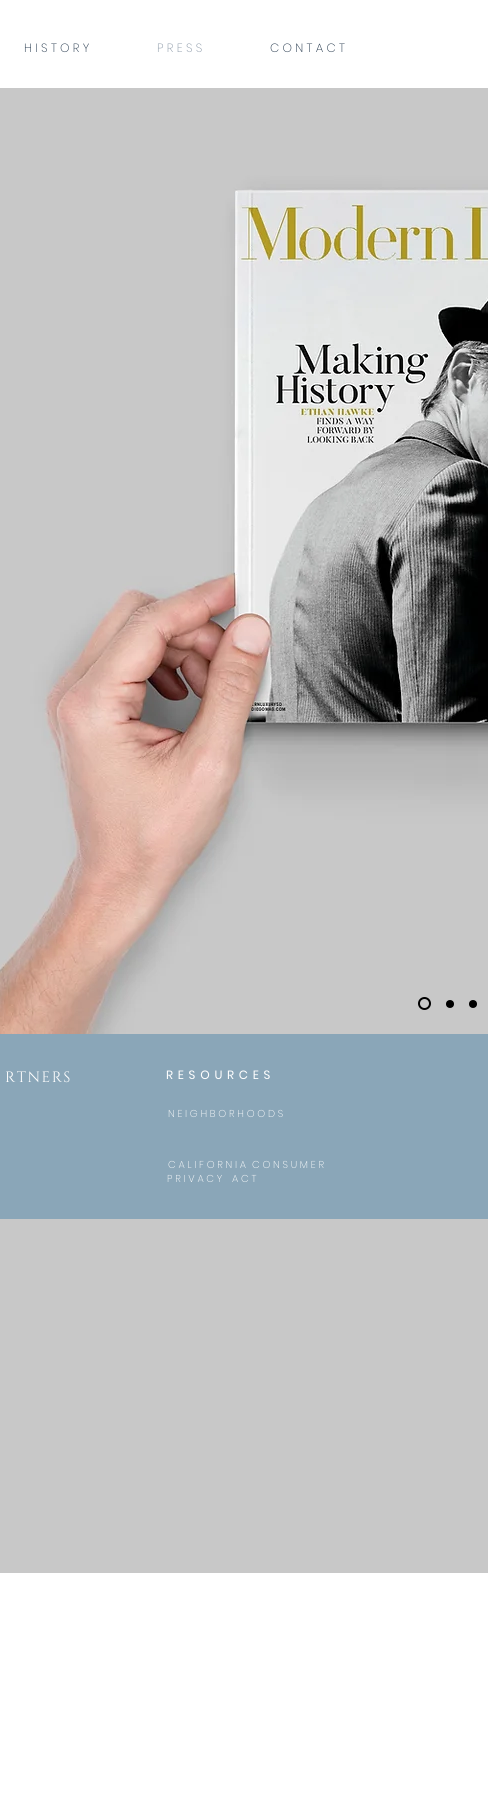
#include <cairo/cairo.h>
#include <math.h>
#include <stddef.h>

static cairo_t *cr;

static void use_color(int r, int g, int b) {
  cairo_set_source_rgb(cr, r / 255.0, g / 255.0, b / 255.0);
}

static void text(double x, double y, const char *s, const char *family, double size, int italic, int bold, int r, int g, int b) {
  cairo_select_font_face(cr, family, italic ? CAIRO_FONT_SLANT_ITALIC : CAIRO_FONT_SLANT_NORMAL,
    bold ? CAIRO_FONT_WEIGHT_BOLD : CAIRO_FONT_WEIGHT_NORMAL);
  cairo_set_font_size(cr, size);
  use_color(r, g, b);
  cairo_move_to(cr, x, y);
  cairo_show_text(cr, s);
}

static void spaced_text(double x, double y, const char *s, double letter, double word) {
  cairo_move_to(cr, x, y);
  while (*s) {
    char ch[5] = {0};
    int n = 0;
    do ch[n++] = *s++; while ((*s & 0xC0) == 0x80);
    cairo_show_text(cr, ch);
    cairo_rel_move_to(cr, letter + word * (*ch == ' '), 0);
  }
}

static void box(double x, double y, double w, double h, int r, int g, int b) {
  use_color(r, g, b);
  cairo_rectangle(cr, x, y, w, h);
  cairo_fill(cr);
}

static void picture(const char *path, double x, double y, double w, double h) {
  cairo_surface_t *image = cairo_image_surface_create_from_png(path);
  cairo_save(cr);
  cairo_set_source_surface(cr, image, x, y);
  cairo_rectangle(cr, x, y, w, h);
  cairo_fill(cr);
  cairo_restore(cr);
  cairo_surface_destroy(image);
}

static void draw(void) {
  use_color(255, 255, 255);
  cairo_paint(cr);
  picture("img_01.png", 0, 88, 488, 946);
  cairo_arc(cr, 424.5, 1003.5, 5.5, 0, 2 * M_PI);
  use_color(0, 0, 0);
  cairo_stroke(cr);
  cairo_arc(cr, 450, 1004, 4, 0, 2 * M_PI);
  cairo_fill(cr);
  cairo_arc(cr, 473, 1004, 4, 0, 2 * M_PI);
  cairo_fill(cr);
  box(0, 1034, 488, 185, 138, 166, 184);
  box(0, 1219, 488, 354, 200, 200, 200);
  text(24, 52, "H I S T O R Y", "Poppins ExtraLight", 12, 0, 0, 39, 58, 78);
  text(157, 52, "P R E S S", "Poppins ExtraLight", 12, 0, 0, 139, 152, 167);
  text(270, 52, "C O N T A C T", "Poppins ExtraLight", 12, 0, 0, 39, 58, 78);
  cairo_select_font_face(cr, "Cinzel", CAIRO_FONT_SLANT_NORMAL, CAIRO_FONT_WEIGHT_NORMAL);
  cairo_set_font_size(cr, 15);
  use_color(255, 255, 255);
  spaced_text(5, 1082, "RTNERS", 1.5, 0);
  cairo_select_font_face(cr, "Poppins", CAIRO_FONT_SLANT_NORMAL, CAIRO_FONT_WEIGHT_NORMAL);
  cairo_set_font_size(cr, 12);
  spaced_text(166, 1079, "RESOURCES", 4.75, 0);
  text(168, 1117, "N E I G H B O R H O O D S", "Poppins ExtraLight", 10, 0, 0, 255, 255, 255);
  text(168, 1168, "C A L I F O R N I A", "Poppins ExtraLight", 10, 0, 0, 255, 255, 255);
  text(252, 1168, "C O N S U M E R", "Poppins ExtraLight", 10, 0, 0, 255, 255, 255);
  text(167, 1182, "P R I V A C Y", "Poppins ExtraLight", 10, 0, 0, 255, 255, 255);
  text(232, 1182, "A C T", "Poppins ExtraLight", 10, 0, 0, 255, 255, 255);
}

int main(void) {
  cairo_surface_t *surface = cairo_image_surface_create(CAIRO_FORMAT_RGB24, 488, 1802);
  cr = cairo_create(surface);
  cairo_font_options_t *options = cairo_font_options_create();
  cairo_font_options_set_hint_metrics(options, CAIRO_HINT_METRICS_OFF);
  cairo_font_options_set_hint_style(options, CAIRO_HINT_STYLE_NONE);
  cairo_set_font_options(cr, options);
  cairo_set_miter_limit(cr, 4);
  draw();
  cairo_surface_write_to_png(surface, "out.png");
  cairo_font_options_destroy(options);
  cairo_destroy(cr);
  cairo_surface_destroy(surface);
  return 0;
}
